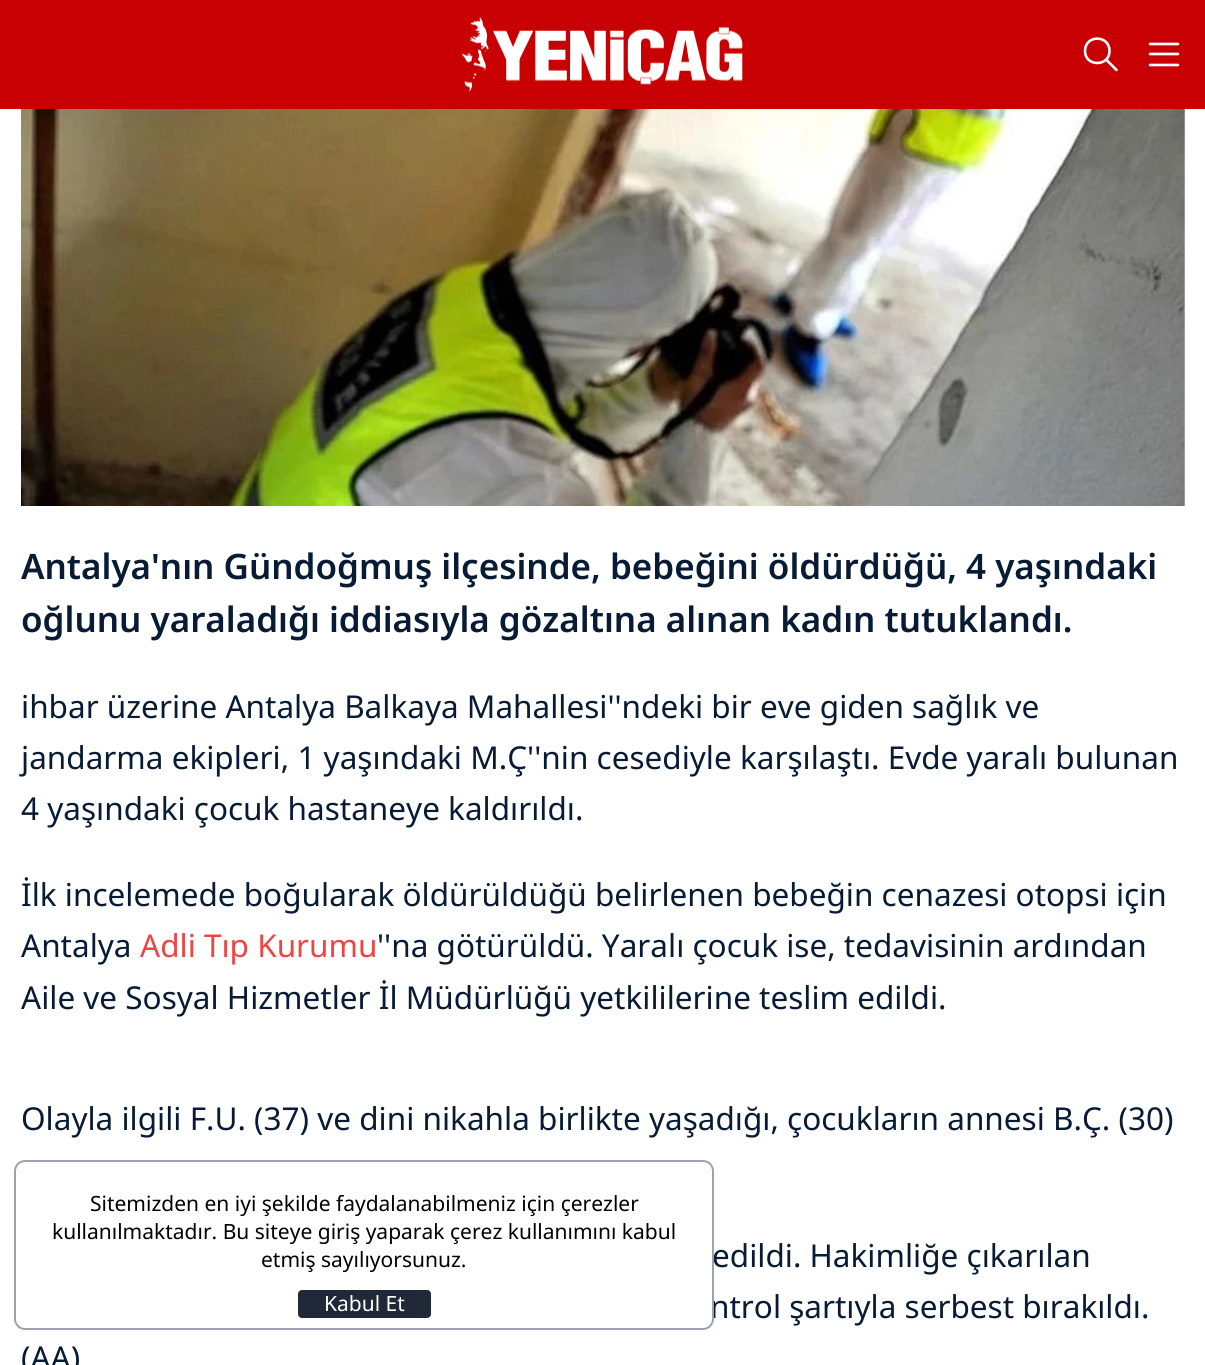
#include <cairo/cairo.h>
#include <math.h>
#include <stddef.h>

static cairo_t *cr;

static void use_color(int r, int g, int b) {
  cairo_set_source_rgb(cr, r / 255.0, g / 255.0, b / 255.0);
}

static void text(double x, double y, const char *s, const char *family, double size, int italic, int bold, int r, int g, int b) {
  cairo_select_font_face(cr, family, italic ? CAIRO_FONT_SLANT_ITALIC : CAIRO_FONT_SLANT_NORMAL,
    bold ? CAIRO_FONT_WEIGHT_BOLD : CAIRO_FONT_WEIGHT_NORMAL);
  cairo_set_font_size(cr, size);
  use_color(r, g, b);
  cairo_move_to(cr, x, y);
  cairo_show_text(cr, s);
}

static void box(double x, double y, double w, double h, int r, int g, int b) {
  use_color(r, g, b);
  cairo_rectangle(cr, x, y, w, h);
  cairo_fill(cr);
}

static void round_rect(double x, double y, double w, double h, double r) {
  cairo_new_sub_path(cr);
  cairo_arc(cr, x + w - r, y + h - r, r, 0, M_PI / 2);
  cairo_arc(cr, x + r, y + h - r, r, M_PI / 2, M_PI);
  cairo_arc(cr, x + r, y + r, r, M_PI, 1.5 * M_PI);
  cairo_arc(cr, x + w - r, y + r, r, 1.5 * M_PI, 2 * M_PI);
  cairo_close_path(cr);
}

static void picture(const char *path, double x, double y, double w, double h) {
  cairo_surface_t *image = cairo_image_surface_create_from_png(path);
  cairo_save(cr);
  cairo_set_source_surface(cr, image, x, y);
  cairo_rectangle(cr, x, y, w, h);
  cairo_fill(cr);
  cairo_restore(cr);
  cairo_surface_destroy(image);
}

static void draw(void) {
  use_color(255, 255, 255);
  cairo_paint(cr);
  box(0, 0, 1205, 109, 201, 0, 3);
  picture("img_01.png", 462, 17, 281, 75);
  cairo_new_path(cr);
  cairo_move_to(cr, 1085, 51);
  cairo_curve_to(cr, 1085, 67, 1109.5, 67, 1109.5, 51);
  cairo_curve_to(cr, 1109.5, 34.5, 1085, 34.5, 1085, 51);
  cairo_move_to(cr, 1116.5, 70);
  cairo_line_to(cr, 1106, 59.5);
  use_color(255, 255, 255);
  cairo_set_line_width(cr, 2.6);
  cairo_set_line_cap(cr, CAIRO_LINE_CAP_ROUND);
  cairo_set_line_join(cr, CAIRO_LINE_JOIN_ROUND);
  cairo_stroke(cr);
  cairo_new_path(cr);
  cairo_move_to(cr, 1150, 44);
  cairo_line_to(cr, 1178, 44);
  cairo_move_to(cr, 1150, 54);
  cairo_line_to(cr, 1178, 54);
  cairo_move_to(cr, 1150, 65);
  cairo_line_to(cr, 1178, 65);
  cairo_stroke(cr);
  picture("img_02.png", 21, 109, 1164, 397);
  text(21, 579, "Antalya'nın Gündoğmuş ilçesinde, bebeğini öldürdüğü, 4 yaşındaki", "Noto Sans SemiBold", 35, 0, 0, 7, 27, 52);
  text(21, 632, "oğlunu yaraladığı iddiasıyla gözaltına alınan kadın tutuklandı.", "Noto Sans SemiBold", 35, 0, 0, 7, 27, 52);
  text(21, 718, "ihbar üzerine Antalya Balkaya Mahallesi''ndeki bir eve giden sağlık ve", "Noto Sans", 31.5, 0, 0, 7, 27, 52);
  text(21, 769, "jandarma ekipleri, 1 yaşındaki M.Ç''nin cesediyle karşılaştı. Evde yaralı bulunan", "Noto Sans", 31.5, 0, 0, 7, 27, 52);
  text(21, 820, "4 yaşındaki çocuk hastaneye kaldırıldı.", "Noto Sans", 31.5, 0, 0, 7, 27, 52);
  text(21, 906, "İlk incelemede boğularak öldürüldüğü belirlenen bebeğin cenazesi otopsi için", "Noto Sans", 31.5, 0, 0, 7, 27, 52);
  text(21, 957, "Antalya", "Noto Sans", 31.5, 0, 0, 7, 27, 52);
  text(140, 957, "Adli Tıp Kurumu", "Noto Sans", 31.5, 0, 0, 239, 68, 68);
  text(377, 957, "''na götürüldü. Yaralı çocuk ise, tedavisinin ardından", "Noto Sans", 31.5, 0, 0, 7, 27, 52);
  text(21, 1009, "Aile ve Sosyal Hizmetler İl Müdürlüğü yetkililerine teslim edildi.", "Noto Sans", 31.5, 0, 0, 7, 27, 52);
  text(21, 1130, "Olayla ilgili F.U. (37) ve dini nikahla birlikte yaşadığı, çocukların annesi B.Ç. (30)", "Noto Sans", 31.5, 0, 0, 7, 27, 52);
  text(712, 1267, "edildi. Hakimliğe çıkarılan", "Noto Sans", 31.5, 0, 0, 7, 27, 52);
  text(710, 1318, "ntrol şartıyla serbest bırakıldı.", "Noto Sans", 31.5, 0, 0, 7, 27, 52);
  text(21, 1369, "(AA)", "Noto Sans", 31.5, 0, 0, 7, 27, 52);
  use_color(255, 255, 255);
  round_rect(15, 1161, 698, 168, 10);
  cairo_fill_preserve(cr);
  use_color(156, 163, 175);
  cairo_set_line_width(cr, 2);
  cairo_set_line_cap(cr, CAIRO_LINE_CAP_BUTT);
  cairo_set_line_join(cr, CAIRO_LINE_JOIN_MITER);
  cairo_stroke(cr);
  text(90, 1211, "Sitemizden en iyi şekilde faydalanabilmeniz için çerezler", "Noto Sans", 21, 0, 0, 0, 0, 0);
  text(52, 1239, "kullanılmaktadır. Bu siteye giriş yaparak çerez kullanımını kabul", "Noto Sans", 21, 0, 0, 0, 0, 0);
  text(261, 1267, "etmiş sayılıyorsunuz.", "Noto Sans", 21, 0, 0, 0, 0, 0);
  use_color(31, 41, 55);
  round_rect(298, 1290, 133, 28, 4);
  cairo_fill(cr);
  text(324, 1311, "Kabul Et", "Noto Sans", 21, 0, 0, 255, 255, 255);
}

int main(void) {
  cairo_surface_t *surface = cairo_image_surface_create(CAIRO_FORMAT_RGB24, 1205, 1365);
  cr = cairo_create(surface);
  cairo_font_options_t *options = cairo_font_options_create();
  cairo_font_options_set_hint_metrics(options, CAIRO_HINT_METRICS_OFF);
  cairo_font_options_set_hint_style(options, CAIRO_HINT_STYLE_NONE);
  cairo_set_font_options(cr, options);
  cairo_set_miter_limit(cr, 4);
  draw();
  cairo_surface_write_to_png(surface, "out.png");
  cairo_font_options_destroy(options);
  cairo_destroy(cr);
  cairo_surface_destroy(surface);
  return 0;
}
